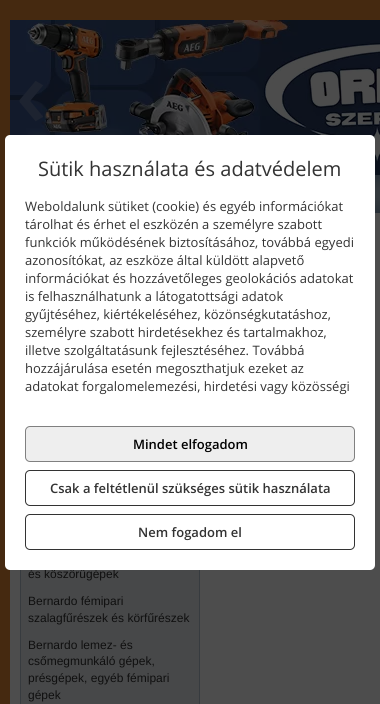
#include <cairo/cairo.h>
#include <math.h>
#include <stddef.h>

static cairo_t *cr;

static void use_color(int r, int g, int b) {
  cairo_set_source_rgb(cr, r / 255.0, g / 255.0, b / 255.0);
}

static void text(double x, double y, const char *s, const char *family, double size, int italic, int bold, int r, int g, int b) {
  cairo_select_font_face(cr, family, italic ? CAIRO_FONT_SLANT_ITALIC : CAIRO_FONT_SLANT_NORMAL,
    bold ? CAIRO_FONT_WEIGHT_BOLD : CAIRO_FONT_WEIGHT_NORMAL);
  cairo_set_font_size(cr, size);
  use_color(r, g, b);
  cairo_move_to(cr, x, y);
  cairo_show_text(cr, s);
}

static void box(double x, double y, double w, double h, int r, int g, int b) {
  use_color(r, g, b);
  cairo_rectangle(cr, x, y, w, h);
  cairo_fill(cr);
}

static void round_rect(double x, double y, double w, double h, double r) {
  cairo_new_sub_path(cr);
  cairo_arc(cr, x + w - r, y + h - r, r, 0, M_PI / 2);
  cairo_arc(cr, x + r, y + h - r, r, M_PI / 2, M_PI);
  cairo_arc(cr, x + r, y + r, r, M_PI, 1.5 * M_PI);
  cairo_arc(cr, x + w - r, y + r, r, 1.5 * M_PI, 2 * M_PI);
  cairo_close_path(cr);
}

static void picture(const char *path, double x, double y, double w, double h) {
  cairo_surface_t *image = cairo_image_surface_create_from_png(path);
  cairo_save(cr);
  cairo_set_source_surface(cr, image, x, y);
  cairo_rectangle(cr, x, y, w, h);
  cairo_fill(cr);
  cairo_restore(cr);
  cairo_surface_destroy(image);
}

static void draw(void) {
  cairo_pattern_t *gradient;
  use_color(69, 41, 16);
  cairo_paint(cr);
  box(10, 213, 370, 491, 77, 77, 77);
  picture("img_01.png", 10, 20, 370, 155);
  gradient = cairo_pattern_create_linear(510, 175, 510, 213);
  cairo_pattern_add_color_stop_rgba(gradient, 0, 0.161, 0.188, 0.216, 1);
  cairo_pattern_add_color_stop_rgba(gradient, 0.4, 0.208, 0.227, 0.243, 1);
  cairo_pattern_add_color_stop_rgba(gradient, 0.6, 0.208, 0.227, 0.243, 1);
  cairo_pattern_add_color_stop_rgba(gradient, 1, 0.161, 0.188, 0.216, 1);
  cairo_set_source(cr, gradient);
  cairo_pattern_destroy(gradient);
  cairo_rectangle(cr, 375, 175, 5, 38);
  cairo_fill(cr);
  box(21, 570, 178, 134, 71, 72, 73);
  cairo_rectangle(cr, 20.5, 389.5, 179, 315);
  use_color(55, 59, 63);
  cairo_set_line_width(cr, 1);
  cairo_stroke(cr);
  text(16, 126, "‹", "Open Sans", 90, 0, 1, 29, 35, 48);
  text(28, 578, "és köszörűgépek", "Liberation Sans", 12, 0, 0, 15, 15, 15);
  text(28, 605, "Bernardo fémipari", "Liberation Sans", 12, 0, 0, 15, 15, 15);
  text(28, 622, "szalagfűrészek és körfűrészek", "Liberation Sans", 12, 0, 0, 15, 15, 15);
  text(28, 649, "Bernardo lemez- és", "Liberation Sans", 12, 0, 0, 15, 15, 15);
  text(28, 665, "csőmegmunkáló gépek,", "Liberation Sans", 12, 0, 0, 15, 15, 15);
  text(28, 682, "présgépek, egyéb fémipari", "Liberation Sans", 12, 0, 0, 15, 15, 15);
  text(28, 699, "gépek", "Liberation Sans", 12, 0, 0, 15, 15, 15);
  use_color(255, 255, 255);
  round_rect(5, 135, 370, 435, 5);
  cairo_fill(cr);
  text(38, 176, "Sütik használata és adatvédelem", "Open Sans", 20, 0, 0, 51, 51, 51);
  text(25, 211, "Weboldalunk sütiket (cookie) és egyéb információkat", "Open Sans", 13, 0, 0, 51, 51, 51);
  text(25, 229, "tárolhat és érhet el eszközén a személyre szabott", "Open Sans", 13, 0, 0, 51, 51, 51);
  text(25, 247, "funkciók működésének biztosításához, továbbá egyedi", "Open Sans", 13, 0, 0, 51, 51, 51);
  text(25, 265, "azonosítókat, az eszköze által küldött alapvető", "Open Sans", 13, 0, 0, 51, 51, 51);
  text(25, 283, "információkat és hozzávetőleges geolokációs adatokat", "Open Sans", 13, 0, 0, 51, 51, 51);
  text(25, 301, "is felhasználhatunk a látogatottsági adatok", "Open Sans", 13, 0, 0, 51, 51, 51);
  text(25, 319, "gyűjtéséhez, kiértékeléséhez, közönségkutatáshoz,", "Open Sans", 13, 0, 0, 51, 51, 51);
  text(25, 337, "személyre szabott hirdetésekhez és tartalmakhoz,", "Open Sans", 13, 0, 0, 51, 51, 51);
  text(25, 355, "illetve szolgáltatásunk fejlesztéséhez. Továbbá", "Open Sans", 13, 0, 0, 51, 51, 51);
  text(25, 373, "hozzájárulása esetén megoszthatjuk ezeket az", "Open Sans", 13, 0, 0, 51, 51, 51);
  text(25, 391, "adatokat forgalomelemezési, hirdetési vagy közösségi", "Open Sans", 13, 0, 0, 51, 51, 51);
  use_color(238, 238, 238);
  round_rect(25.5, 426.5, 329, 35, 4.5);
  cairo_fill_preserve(cr);
  use_color(128, 128, 128);
  cairo_stroke(cr);
  text(133, 449, "Mindet elfogadom", "Open Sans SemiBold", 13, 0, 0, 0, 0, 0);
  round_rect(25.5, 470.5, 329, 35, 4.5);
  use_color(51, 51, 51);
  cairo_stroke(cr);
  text(50, 493, "Csak a feltétlenül szükséges sütik használata", "Open Sans SemiBold", 13, 0, 0, 51, 51, 51);
  round_rect(25.5, 514.5, 329, 35, 4.5);
  cairo_stroke(cr);
  text(138, 537, "Nem fogadom el", "Open Sans SemiBold", 13, 0, 0, 51, 51, 51);
}

int main(void) {
  cairo_surface_t *surface = cairo_image_surface_create(CAIRO_FORMAT_RGB24, 380, 704);
  cr = cairo_create(surface);
  cairo_font_options_t *options = cairo_font_options_create();
  cairo_font_options_set_hint_metrics(options, CAIRO_HINT_METRICS_OFF);
  cairo_font_options_set_hint_style(options, CAIRO_HINT_STYLE_NONE);
  cairo_set_font_options(cr, options);
  cairo_set_miter_limit(cr, 4);
  draw();
  cairo_surface_write_to_png(surface, "out.png");
  cairo_font_options_destroy(options);
  cairo_destroy(cr);
  cairo_surface_destroy(surface);
  return 0;
}
